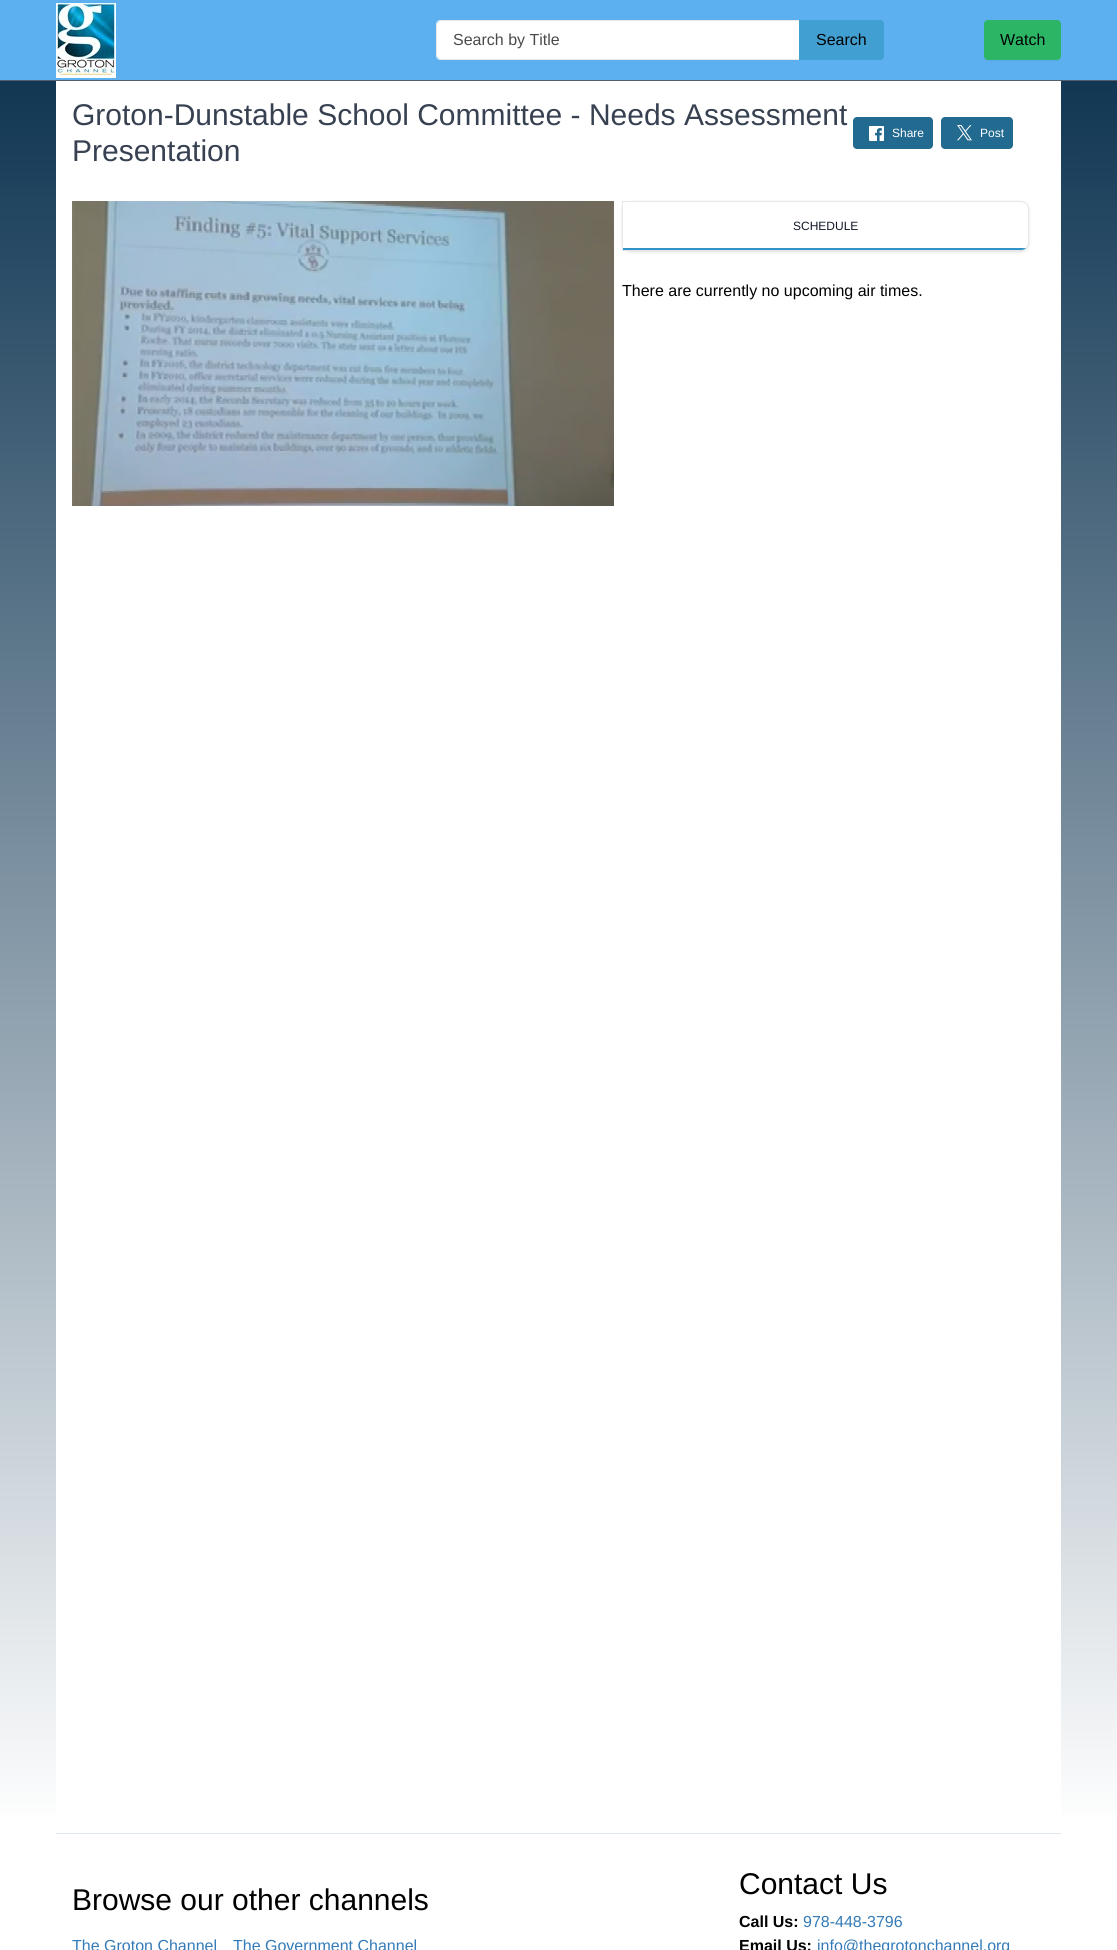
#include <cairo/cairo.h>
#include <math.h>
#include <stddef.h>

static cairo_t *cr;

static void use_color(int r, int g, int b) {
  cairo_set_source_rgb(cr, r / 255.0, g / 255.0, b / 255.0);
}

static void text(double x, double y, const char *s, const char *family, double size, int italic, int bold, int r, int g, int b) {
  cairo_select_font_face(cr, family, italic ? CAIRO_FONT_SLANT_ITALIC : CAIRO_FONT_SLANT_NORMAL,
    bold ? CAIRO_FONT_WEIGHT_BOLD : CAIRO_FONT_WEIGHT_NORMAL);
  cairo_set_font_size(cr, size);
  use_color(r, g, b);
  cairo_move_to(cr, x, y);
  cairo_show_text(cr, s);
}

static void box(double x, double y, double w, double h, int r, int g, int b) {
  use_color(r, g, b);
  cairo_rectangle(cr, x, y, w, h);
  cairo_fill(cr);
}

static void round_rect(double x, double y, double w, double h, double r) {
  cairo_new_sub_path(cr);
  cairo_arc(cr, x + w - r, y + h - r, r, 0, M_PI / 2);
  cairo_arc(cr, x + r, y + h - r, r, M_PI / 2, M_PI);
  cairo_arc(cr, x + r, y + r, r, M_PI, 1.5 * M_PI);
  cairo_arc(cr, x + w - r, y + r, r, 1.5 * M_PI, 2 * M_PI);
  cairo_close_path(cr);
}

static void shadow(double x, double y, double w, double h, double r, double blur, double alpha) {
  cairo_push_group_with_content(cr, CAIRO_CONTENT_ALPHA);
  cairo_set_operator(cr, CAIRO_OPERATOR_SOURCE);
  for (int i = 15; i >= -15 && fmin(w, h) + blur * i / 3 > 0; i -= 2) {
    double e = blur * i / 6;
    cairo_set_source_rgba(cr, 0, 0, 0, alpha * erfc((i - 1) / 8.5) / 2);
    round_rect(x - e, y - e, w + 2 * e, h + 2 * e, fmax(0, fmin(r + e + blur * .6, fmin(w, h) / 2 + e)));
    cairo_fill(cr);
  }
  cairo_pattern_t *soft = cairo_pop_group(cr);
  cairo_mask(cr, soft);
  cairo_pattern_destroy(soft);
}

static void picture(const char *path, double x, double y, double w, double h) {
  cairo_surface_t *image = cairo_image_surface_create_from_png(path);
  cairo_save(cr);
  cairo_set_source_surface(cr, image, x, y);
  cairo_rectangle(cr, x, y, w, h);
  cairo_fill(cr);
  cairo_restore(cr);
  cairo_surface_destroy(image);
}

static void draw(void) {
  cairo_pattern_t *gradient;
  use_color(255, 255, 255);
  cairo_paint(cr);
  box(0, 0, 1117, 80, 93, 176, 240);
  box(0, 80, 1117, 1, 84, 92, 110);
  picture("img_01.png", 56, 3, 60, 75);
  use_color(255, 255, 255);
  cairo_new_path(cr);
  cairo_move_to(cr, 440, 21);
  cairo_line_to(cr, 799, 21);
  cairo_line_to(cr, 799, 59);
  cairo_line_to(cr, 440, 59);
  cairo_curve_to(cr, 438.5, 59, 437, 57.5, 437, 56);
  cairo_line_to(cr, 437, 24);
  cairo_curve_to(cr, 437, 22.5, 438.5, 21, 440, 21);
  cairo_close_path(cr);
  cairo_fill(cr);
  use_color(229, 231, 235);
  cairo_set_fill_rule(cr, CAIRO_FILL_RULE_EVEN_ODD);
  cairo_new_path(cr);
  cairo_move_to(cr, 440, 20);
  cairo_line_to(cr, 799, 20);
  cairo_line_to(cr, 799, 60);
  cairo_line_to(cr, 440, 60);
  cairo_curve_to(cr, 438, 60, 436, 58, 436, 56);
  cairo_line_to(cr, 436, 24);
  cairo_curve_to(cr, 436, 22, 438, 20, 440, 20);
  cairo_close_path(cr);
  cairo_move_to(cr, 440, 21);
  cairo_line_to(cr, 799, 21);
  cairo_line_to(cr, 799, 59);
  cairo_line_to(cr, 440, 59);
  cairo_curve_to(cr, 438, 59, 437, 58, 437, 56);
  cairo_line_to(cr, 437, 24);
  cairo_curve_to(cr, 437, 22, 438, 21, 440, 21);
  cairo_close_path(cr);
  cairo_fill(cr);
  use_color(66, 159, 209);
  cairo_new_path(cr);
  cairo_move_to(cr, 799.5, 20.5);
  cairo_line_to(cr, 880, 20.5);
  cairo_curve_to(cr, 882, 20.5, 883.5, 22, 883.5, 24);
  cairo_line_to(cr, 883.5, 56);
  cairo_curve_to(cr, 883.5, 58, 882, 59.5, 880, 59.5);
  cairo_line_to(cr, 799.5, 59.5);
  cairo_close_path(cr);
  cairo_fill_preserve(cr);
  cairo_set_line_width(cr, 1);
  cairo_stroke(cr);
  use_color(0, 0, 0);
  shadow(984, 21, 77, 40, 4, 1, 0.05);
  use_color(45, 181, 102);
  round_rect(984, 20, 77, 40, 4);
  cairo_fill(cr);
  gradient = cairo_pattern_create_linear(558, 81, 559, 1833);
  cairo_pattern_add_color_stop_rgba(gradient, 0, 0.067, 0.216, 0.329, 1);
  cairo_pattern_add_color_stop_rgba(gradient, 1, 1, 1, 1, 1);
  cairo_set_source(cr, gradient);
  cairo_pattern_destroy(gradient);
  cairo_rectangle(cr, 0, 81, 1117, 1734);
  cairo_fill(cr);
  box(56, 81, 1005, 1734, 255, 255, 255);
  use_color(35, 106, 144);
  round_rect(853, 117, 80, 32, 4);
  cairo_fill(cr);
  picture("img_02.png", 869, 126, 15, 15);
  round_rect(941, 117, 72, 32, 4);
  cairo_fill(cr);
  picture("img_03.png", 957, 125, 15, 16);
  picture("img_04.png", 72, 201, 542, 305);
  use_color(0, 0, 0);
  shadow(623, 203, 405, 48, 7, 1, 0.1);
  shadow(622, 202, 407, 50, 8, 1.5, 0.1);
  use_color(255, 255, 255);
  cairo_new_path(cr);
  cairo_move_to(cr, 622.5, 201.5);
  cairo_line_to(cr, 1021, 201.5);
  cairo_curve_to(cr, 1025, 201.5, 1028.5, 205, 1028.5, 209);
  cairo_line_to(cr, 1028.5, 243);
  cairo_curve_to(cr, 1028.5, 247, 1025, 250.5, 1021, 250.5);
  cairo_line_to(cr, 622.5, 250.5);
  cairo_close_path(cr);
  cairo_fill_preserve(cr);
  use_color(229, 231, 235);
  cairo_stroke(cr);
  cairo_save(cr);
  cairo_set_fill_rule(cr, CAIRO_FILL_RULE_WINDING);
  cairo_new_path(cr);
  cairo_move_to(cr, 623, 202);
  cairo_line_to(cr, 1021, 202);
  cairo_curve_to(cr, 1025, 202, 1028, 205, 1028, 209);
  cairo_line_to(cr, 1028, 243);
  cairo_curve_to(cr, 1028, 247, 1025, 250, 1021, 250);
  cairo_line_to(cr, 623, 250);
  cairo_close_path(cr);
  cairo_clip(cr);
  box(623, 248, 405, 2, 49, 146, 200);
  cairo_restore(cr);
  box(56, 1833, 1005, 1, 226, 232, 240);
  text(453, 45, "Search by Title", "Liberation Sans", 16, 0, 0, 74, 74, 74);
  text(816, 45, "Search", "Liberation Sans", 16, 0, 0, 0, 0, 0);
  text(1000, 45, "Watch", "Liberation Sans", 16, 0, 0, 0, 0, 0);
  text(72, 125, "Groton-Dunstable School Committee - Needs Assessment", "Liberation Sans", 30, 0, 0, 55, 65, 81);
  text(72, 161, "Presentation", "Liberation Sans", 30, 0, 0, 55, 65, 81);
  text(892, 137, "Share", "Liberation Sans", 12, 0, 0, 255, 255, 255);
  text(980, 137, "Post", "Liberation Sans", 12, 0, 0, 255, 255, 255);
  text(793, 230, "SCHEDULE", "Liberation Sans", 12, 0, 0, 17, 24, 39);
  text(622, 296, "There are currently no upcoming air times.", "Liberation Sans", 16, 0, 0, 0, 0, 0);
  text(72, 1910, "Browse our other channels", "Liberation Sans", 30, 0, 0, 0, 0, 0);
  text(72, 1951, "The Groton Channel", "Liberation Sans", 16, 0, 0, 51, 122, 183);
  text(233, 1951, "The Government Channel", "Liberation Sans", 16, 0, 0, 51, 122, 183);
  text(739, 1894, "Contact Us", "Liberation Sans", 30, 0, 0, 0, 0, 0);
  text(739, 1927, "Call Us:", "Liberation Sans", 16, 0, 1, 0, 0, 0);
  text(803, 1927, "978-448-3796", "Liberation Sans", 16, 0, 0, 51, 122, 183);
  text(739, 1951, "Email Us:", "Liberation Sans", 16, 0, 1, 0, 0, 0);
  text(817, 1951, "info@thegrotonchannel.org", "Liberation Sans", 16, 0, 0, 51, 122, 183);
}

int main(void) {
  cairo_surface_t *surface = cairo_image_surface_create(CAIRO_FORMAT_RGB24, 1117, 1950);
  cr = cairo_create(surface);
  cairo_font_options_t *options = cairo_font_options_create();
  cairo_font_options_set_hint_metrics(options, CAIRO_HINT_METRICS_OFF);
  cairo_font_options_set_hint_style(options, CAIRO_HINT_STYLE_NONE);
  cairo_set_font_options(cr, options);
  cairo_set_miter_limit(cr, 4);
  draw();
  cairo_surface_write_to_png(surface, "out.png");
  cairo_font_options_destroy(options);
  cairo_destroy(cr);
  cairo_surface_destroy(surface);
  return 0;
}
